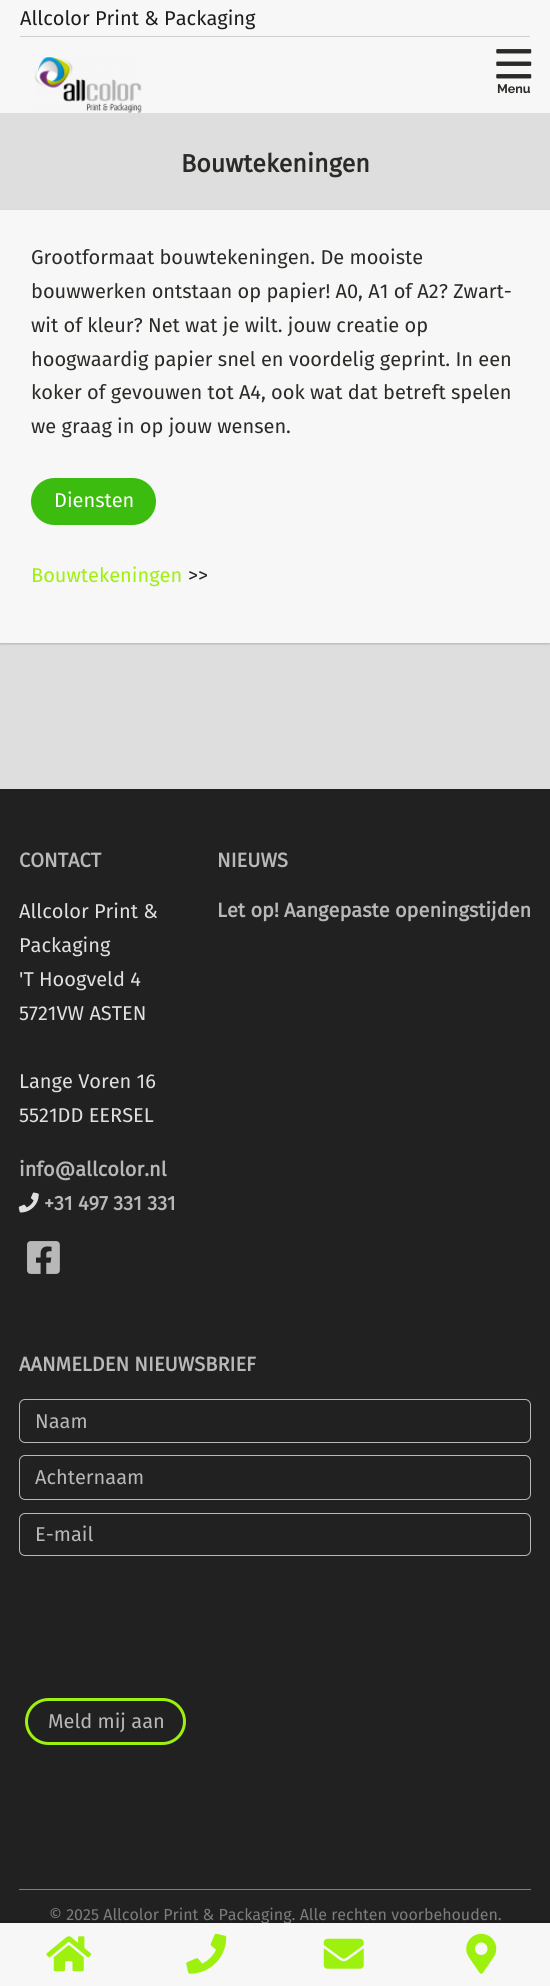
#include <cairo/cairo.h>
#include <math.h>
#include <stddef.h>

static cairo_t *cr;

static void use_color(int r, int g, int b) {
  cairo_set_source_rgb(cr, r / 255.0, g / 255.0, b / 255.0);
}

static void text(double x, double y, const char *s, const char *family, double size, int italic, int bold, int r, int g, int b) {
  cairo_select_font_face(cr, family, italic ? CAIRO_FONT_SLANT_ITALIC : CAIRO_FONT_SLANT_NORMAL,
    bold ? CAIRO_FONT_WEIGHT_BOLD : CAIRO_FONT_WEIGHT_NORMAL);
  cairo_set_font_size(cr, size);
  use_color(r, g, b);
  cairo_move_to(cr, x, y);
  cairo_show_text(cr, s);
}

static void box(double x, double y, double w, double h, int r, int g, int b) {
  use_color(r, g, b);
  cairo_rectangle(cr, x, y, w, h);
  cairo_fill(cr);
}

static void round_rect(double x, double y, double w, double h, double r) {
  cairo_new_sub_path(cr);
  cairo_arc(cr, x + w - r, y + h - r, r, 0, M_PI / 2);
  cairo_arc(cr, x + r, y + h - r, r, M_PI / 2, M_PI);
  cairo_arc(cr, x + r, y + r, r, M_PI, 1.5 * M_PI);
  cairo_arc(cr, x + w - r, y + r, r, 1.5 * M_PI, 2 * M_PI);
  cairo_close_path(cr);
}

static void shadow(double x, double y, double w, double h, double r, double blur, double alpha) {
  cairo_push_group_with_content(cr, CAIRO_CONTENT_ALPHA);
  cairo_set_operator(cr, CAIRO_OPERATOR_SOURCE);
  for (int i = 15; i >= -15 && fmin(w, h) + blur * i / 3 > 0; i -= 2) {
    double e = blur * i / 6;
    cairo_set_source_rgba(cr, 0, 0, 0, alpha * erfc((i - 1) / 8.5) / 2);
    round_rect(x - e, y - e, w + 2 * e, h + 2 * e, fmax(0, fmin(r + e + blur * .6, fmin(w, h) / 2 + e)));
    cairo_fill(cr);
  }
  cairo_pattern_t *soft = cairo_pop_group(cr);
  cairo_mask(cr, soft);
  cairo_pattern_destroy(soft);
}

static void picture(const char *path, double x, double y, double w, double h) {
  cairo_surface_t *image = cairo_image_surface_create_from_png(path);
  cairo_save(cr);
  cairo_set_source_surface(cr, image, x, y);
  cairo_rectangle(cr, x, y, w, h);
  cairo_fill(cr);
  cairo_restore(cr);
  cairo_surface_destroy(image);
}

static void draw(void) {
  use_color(33, 33, 33);
  cairo_paint(cr);
  box(0, 0, 550, 113, 247, 247, 247);
  box(20, 36, 510, 1, 206, 206, 206);
  picture("img_01.png", 34, 56, 108, 57);
  picture("img_02.png", 496, 49, 36, 30);
  box(0, 113, 550, 676, 222, 222, 222);
  use_color(0, 0, 0);
  shadow(0, 211, 550, 433, 0, 1, 0.2);
  box(0, 210, 550, 433, 247, 247, 247);
  use_color(60, 188, 15);
  round_rect(32.5, 479.5, 122, 44, 22);
  cairo_fill_preserve(cr);
  cairo_set_line_width(cr, 3);
  cairo_stroke(cr);
  picture("img_03.png", 18, 1192, 21, 21);
  picture("img_04.png", 27, 1241, 33, 33);
  round_rect(19.5, 1399.5, 511, 43, 5.5);
  use_color(184, 184, 184);
  cairo_set_line_width(cr, 1);
  cairo_stroke(cr);
  round_rect(19.5, 1455.5, 511, 44, 5.5);
  cairo_stroke(cr);
  round_rect(19.5, 1513.5, 511, 42, 5.5);
  cairo_stroke(cr);
  round_rect(26.5, 1699.5, 158, 44, 22);
  use_color(158, 241, 14);
  cairo_set_line_width(cr, 3);
  cairo_stroke(cr);
  box(19, 1889, 512, 1, 127, 127, 127);
  use_color(0, 0, 0);
  shadow(0, 1921, 550, 64, 0, 1, 0.11);
  text(20, 25, "Allcolor Print & Packaging", "Fira Sans", 20, 0, 0, 29, 29, 27);
  text(497, 93, "Menu", "Raleway", 12.5, 0, 1, 42, 42, 39);
  text(181, 172, "Bouwtekeningen", "Fira Sans", 25, 0, 1, 42, 42, 39);
  text(31, 264, "Grootformaat bouwtekeningen. De mooiste", "Fira Sans", 20, 0, 0, 42, 42, 39);
  text(31, 298, "bouwwerken ontstaan op papier! A0, A1 of A2? Zwart-", "Fira Sans", 20, 0, 0, 42, 42, 39);
  text(31, 332, "wit of kleur? Net wat je wilt. jouw creatie op", "Fira Sans", 20, 0, 0, 42, 42, 39);
  text(31, 366, "hoogwaardig papier snel en voordelig geprint. In een", "Fira Sans", 20, 0, 0, 42, 42, 39);
  text(31, 399, "koker of gevouwen tot A4, ook wat dat betreft spelen", "Fira Sans", 20, 0, 0, 42, 42, 39);
  text(31, 433, "we graag in op jouw wensen.", "Fira Sans", 20, 0, 0, 42, 42, 39);
  text(54, 507, "Diensten", "Fira Sans", 20, 0, 0, 255, 255, 255);
  text(31, 582, "Bouwtekeningen", "Fira Sans", 20, 0, 0, 158, 241, 14);
  text(188, 582, ">>", "Fira Sans", 20, 0, 0, 42, 42, 39);
  text(19, 867, "CONTACT", "Fira Sans", 20, 0, 1, 184, 184, 184);
  text(19, 918, "Allcolor Print &", "Fira Sans", 20, 0, 0, 224, 224, 224);
  text(19, 952, "Packaging", "Fira Sans", 20, 0, 0, 224, 224, 224);
  text(19, 986, "'T Hoogveld 4", "Fira Sans", 20, 0, 0, 224, 224, 224);
  text(19, 1020, "5721VW ASTEN", "Fira Sans", 20, 0, 0, 224, 224, 224);
  text(19, 1088, "Lange Voren 16", "Fira Sans", 20, 0, 0, 224, 224, 224);
  text(19, 1122, "5521DD EERSEL", "Fira Sans", 20, 0, 0, 224, 224, 224);
  text(19, 1176, "info@allcolor.nl", "Fira Sans", 20, 0, 1, 184, 184, 184);
  text(44, 1210, "+31 497 331 331", "Fira Sans", 20, 0, 1, 184, 184, 184);
  text(217, 867, "NIEUWS", "Fira Sans", 20, 0, 1, 184, 184, 184);
  text(217, 917, "Let op! Aangepaste openingstijden", "Fira Sans", 20, 0, 1, 184, 184, 184);
  text(19, 1371, "AANMELDEN NIEUWSBRIEF", "Fira Sans", 20, 0, 1, 184, 184, 184);
  text(35, 1428, "Naam", "Fira Sans", 20, 0, 0, 184, 184, 184);
  text(35, 1484, "Achternaam", "Fira Sans", 20, 0, 0, 184, 184, 184);
  text(35, 1541, "E-mail", "Fira Sans", 20, 0, 0, 184, 184, 184);
  text(48, 1728, "Meld mij aan", "Fira Sans", 20, 0, 0, 184, 184, 184);
  text(49, 1920, "© 2025 Allcolor Print & Packaging. Alle rechten voorbehouden.", "Fira Sans", 16, 0, 0, 124, 124, 124);
  box(0, 1923, 550, 63, 247, 247, 247);
  picture("img_05.png", 46, 1936, 46, 36);
  picture("img_06.png", 186, 1933, 41, 41);
  picture("img_07.png", 323, 1938, 41, 31);
  picture("img_08.png", 466, 1933, 31, 41);
}

int main(void) {
  cairo_surface_t *surface = cairo_image_surface_create(CAIRO_FORMAT_RGB24, 550, 1986);
  cr = cairo_create(surface);
  cairo_font_options_t *options = cairo_font_options_create();
  cairo_font_options_set_hint_metrics(options, CAIRO_HINT_METRICS_OFF);
  cairo_font_options_set_hint_style(options, CAIRO_HINT_STYLE_NONE);
  cairo_set_font_options(cr, options);
  cairo_set_miter_limit(cr, 4);
  draw();
  cairo_surface_write_to_png(surface, "out.png");
  cairo_font_options_destroy(options);
  cairo_destroy(cr);
  cairo_surface_destroy(surface);
  return 0;
}
